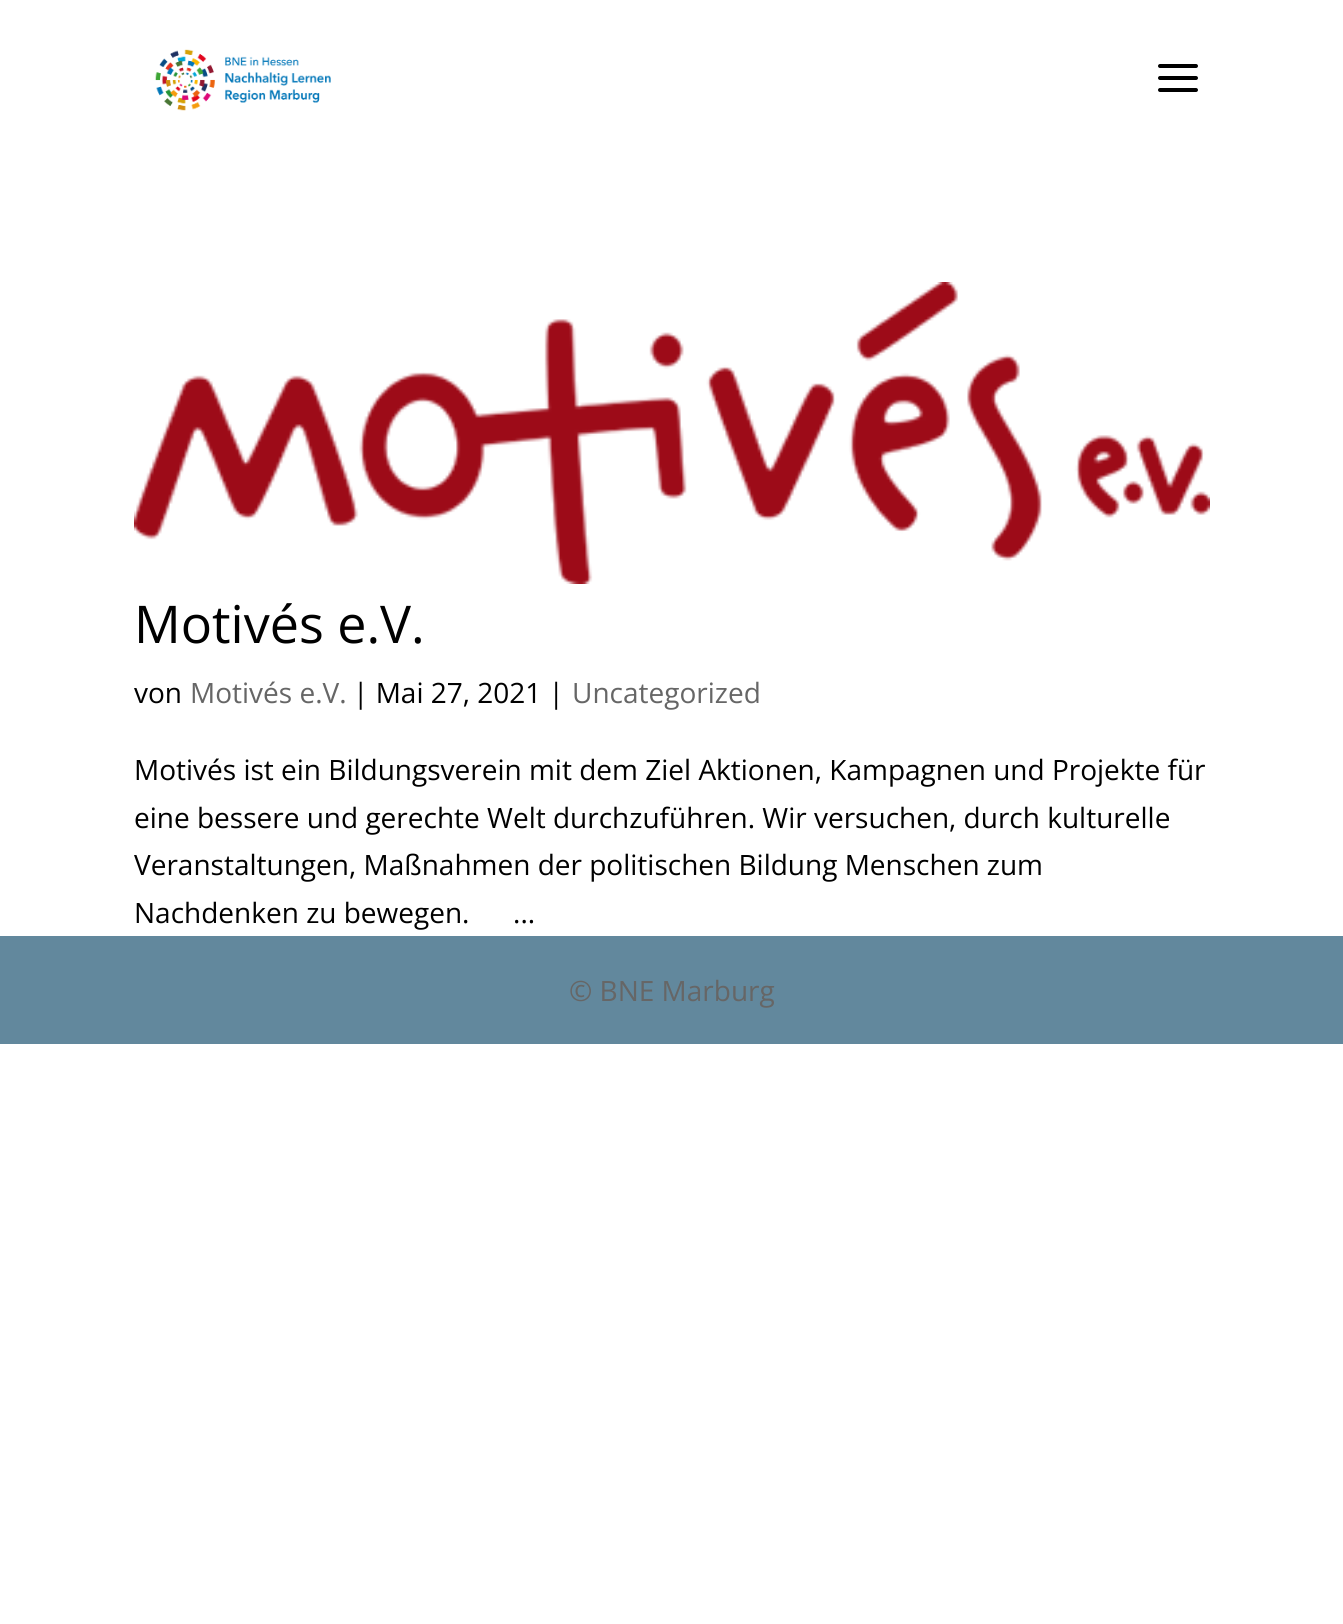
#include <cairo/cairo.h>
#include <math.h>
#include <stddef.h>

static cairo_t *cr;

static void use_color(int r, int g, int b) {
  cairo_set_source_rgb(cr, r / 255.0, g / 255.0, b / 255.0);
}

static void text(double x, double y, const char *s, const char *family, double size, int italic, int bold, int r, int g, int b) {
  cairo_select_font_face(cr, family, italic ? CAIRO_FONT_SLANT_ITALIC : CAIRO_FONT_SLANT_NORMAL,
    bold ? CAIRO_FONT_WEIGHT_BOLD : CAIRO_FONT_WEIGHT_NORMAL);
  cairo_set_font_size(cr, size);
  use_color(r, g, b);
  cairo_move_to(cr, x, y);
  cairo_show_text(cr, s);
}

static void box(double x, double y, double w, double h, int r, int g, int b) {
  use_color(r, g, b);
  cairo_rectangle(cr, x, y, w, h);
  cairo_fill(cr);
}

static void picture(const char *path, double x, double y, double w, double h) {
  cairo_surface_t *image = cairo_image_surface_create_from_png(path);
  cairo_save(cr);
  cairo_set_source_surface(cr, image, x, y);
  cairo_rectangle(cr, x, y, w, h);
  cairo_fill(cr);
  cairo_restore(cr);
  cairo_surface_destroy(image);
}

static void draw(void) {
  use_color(255, 255, 255);
  cairo_paint(cr);
  picture("img_01.png", 155, 49, 176, 62);
  picture("img_02.png", 1158, 64, 40, 28);
  picture("img_03.png", 134, 282, 1076, 302);
  box(0, 936, 1343, 108, 98, 136, 157);
  text(134, 643, "Motivés e.V.", "Open Sans", 52, 0, 0, 0, 0, 0);
  text(134, 703, "von", "Open Sans", 28, 0, 0, 0, 0, 0);
  text(190, 703, "Motivés e.V.", "Open Sans", 28, 0, 0, 102, 102, 102);
  text(353, 703, "| Mai 27, 2021 |", "Open Sans", 28, 0, 0, 0, 0, 0);
  text(572, 703, "Uncategorized", "Open Sans", 28, 0, 0, 102, 102, 102);
  text(134, 780, "Motivés ist ein Bildungsverein mit dem Ziel Aktionen, Kampagnen und Projekte für", "Open Sans", 28, 0, 0, 0, 0, 0);
  text(134, 828, "eine bessere und gerechte Welt durchzuführen. Wir versuchen, durch kulturelle", "Open Sans", 28, 0, 0, 0, 0, 0);
  text(134, 875, "Veranstaltungen, Maßnahmen der politischen Bildung Menschen zum", "Open Sans", 28, 0, 0, 0, 0, 0);
  text(134, 923, "Nachdenken zu bewegen.      ...", "Open Sans", 28, 0, 0, 0, 0, 0);
  text(569, 1001, "© BNE Marburg", "Open Sans", 28, 0, 0, 102, 102, 102);
}

int main(void) {
  cairo_surface_t *surface = cairo_image_surface_create(CAIRO_FORMAT_RGB24, 1343, 1624);
  cr = cairo_create(surface);
  cairo_font_options_t *options = cairo_font_options_create();
  cairo_font_options_set_hint_metrics(options, CAIRO_HINT_METRICS_OFF);
  cairo_font_options_set_hint_style(options, CAIRO_HINT_STYLE_NONE);
  cairo_set_font_options(cr, options);
  cairo_set_miter_limit(cr, 4);
  draw();
  cairo_surface_write_to_png(surface, "out.png");
  cairo_font_options_destroy(options);
  cairo_destroy(cr);
  cairo_surface_destroy(surface);
  return 0;
}
